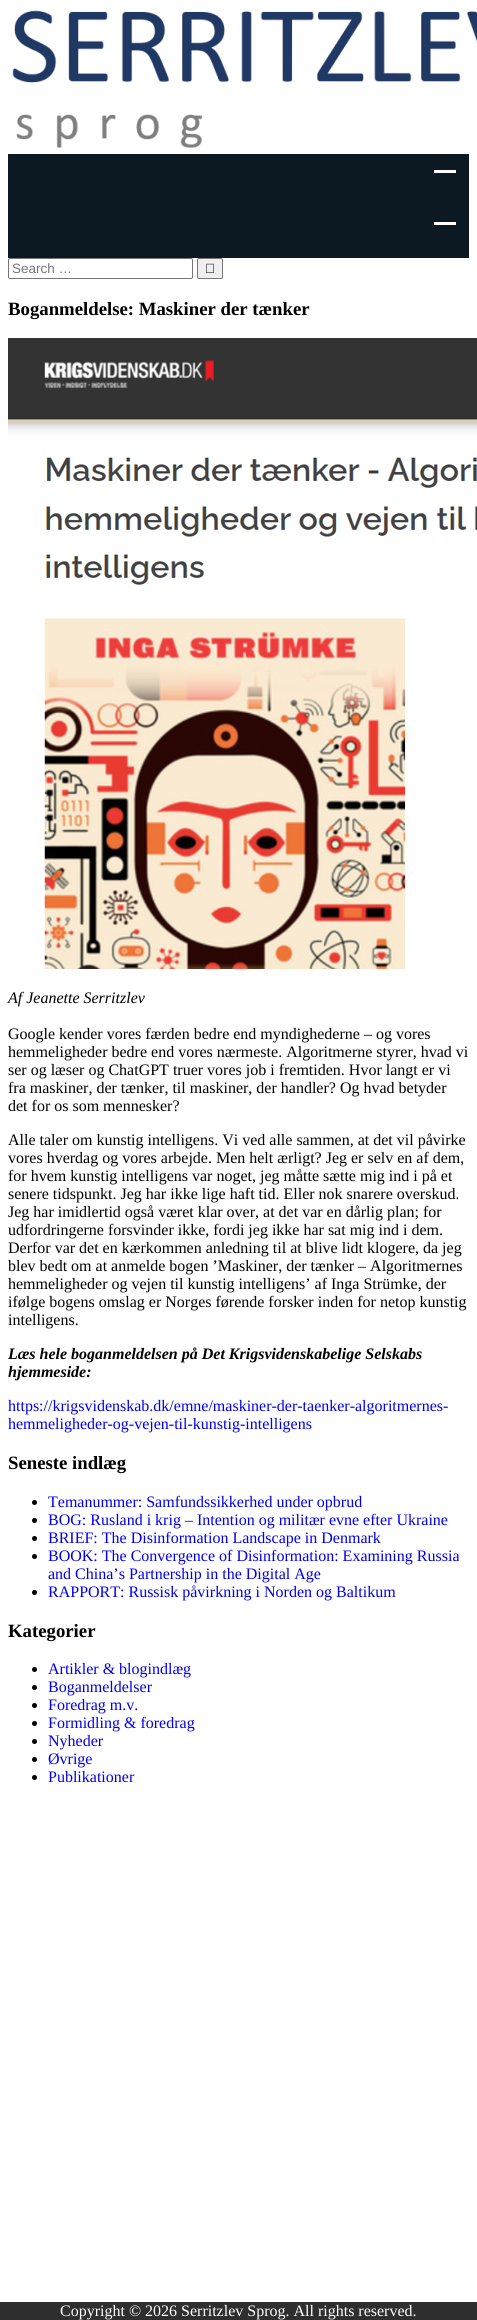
#include <cairo/cairo.h>
#include <math.h>
#include <stddef.h>

static cairo_t *cr;

static void use_color(int r, int g, int b) {
  cairo_set_source_rgb(cr, r / 255.0, g / 255.0, b / 255.0);
}

static void text(double x, double y, const char *s, const char *family, double size, int italic, int bold, int r, int g, int b) {
  cairo_select_font_face(cr, family, italic ? CAIRO_FONT_SLANT_ITALIC : CAIRO_FONT_SLANT_NORMAL,
    bold ? CAIRO_FONT_WEIGHT_BOLD : CAIRO_FONT_WEIGHT_NORMAL);
  cairo_set_font_size(cr, size);
  use_color(r, g, b);
  cairo_move_to(cr, x, y);
  cairo_show_text(cr, s);
}

static void box(double x, double y, double w, double h, int r, int g, int b) {
  use_color(r, g, b);
  cairo_rectangle(cr, x, y, w, h);
  cairo_fill(cr);
}

static void round_rect(double x, double y, double w, double h, double r) {
  cairo_new_sub_path(cr);
  cairo_arc(cr, x + w - r, y + h - r, r, 0, M_PI / 2);
  cairo_arc(cr, x + r, y + h - r, r, M_PI / 2, M_PI);
  cairo_arc(cr, x + r, y + r, r, M_PI, 1.5 * M_PI);
  cairo_arc(cr, x + w - r, y + r, r, 1.5 * M_PI, 2 * M_PI);
  cairo_close_path(cr);
}

static void picture(const char *path, double x, double y, double w, double h) {
  cairo_surface_t *image = cairo_image_surface_create_from_png(path);
  cairo_save(cr);
  cairo_set_source_surface(cr, image, x, y);
  cairo_rectangle(cr, x, y, w, h);
  cairo_fill(cr);
  cairo_restore(cr);
  cairo_surface_destroy(image);
}

static void draw(void) {
  use_color(255, 255, 255);
  cairo_paint(cr);
  picture("img_01.png", 12, 10, 465, 138);
  box(8, 154, 461, 104, 12, 25, 35);
  box(434, 170, 22, 3, 255, 255, 255);
  box(434, 222, 22, 3, 255, 255, 255);
  round_rect(8.5, 258.5, 184, 20, 1.5);
  use_color(118, 118, 118);
  cairo_set_line_width(cr, 1);
  cairo_stroke(cr);
  use_color(239, 239, 239);
  round_rect(197.5, 258.5, 25, 20, 1.5);
  cairo_fill_preserve(cr);
  use_color(118, 118, 118);
  cairo_stroke(cr);
  picture("img_02.png", 206, 263, 8, 10);
  picture("img_03.png", 8, 338, 469, 631);
  use_color(0, 0, 0);
  cairo_arc(cr, 34.5, 1502.5, 2.5, 0, 2 * M_PI);
  cairo_fill(cr);
  cairo_arc(cr, 34.5, 1520.5, 2.5, 0, 2 * M_PI);
  cairo_fill(cr);
  cairo_arc(cr, 34.5, 1538.5, 2.5, 0, 2 * M_PI);
  cairo_fill(cr);
  cairo_arc(cr, 34.5, 1556.5, 2.5, 0, 2 * M_PI);
  cairo_fill(cr);
  cairo_arc(cr, 34.5, 1592.5, 2.5, 0, 2 * M_PI);
  cairo_fill(cr);
  cairo_arc(cr, 34.5, 1669.5, 2.5, 0, 2 * M_PI);
  cairo_fill(cr);
  cairo_arc(cr, 34.5, 1687.5, 2.5, 0, 2 * M_PI);
  cairo_fill(cr);
  cairo_arc(cr, 34.5, 1705.5, 2.5, 0, 2 * M_PI);
  cairo_fill(cr);
  cairo_arc(cr, 34.5, 1723.5, 2.5, 0, 2 * M_PI);
  cairo_fill(cr);
  cairo_arc(cr, 34.5, 1741.5, 2.5, 0, 2 * M_PI);
  cairo_fill(cr);
  cairo_arc(cr, 34.5, 1759.5, 2.5, 0, 2 * M_PI);
  cairo_fill(cr);
  cairo_arc(cr, 34.5, 1777.5, 2.5, 0, 2 * M_PI);
  cairo_fill(cr);
  box(0, 2302, 477, 18, 46, 46, 46);
  text(12, 273, "Search …", "Liberation Sans", 13.5, 0, 0, 117, 117, 117);
  text(8, 315, "Boganmeldelse: Maskiner der tænker", "Liberation Serif", 18.75, 0, 1, 0, 0, 0);
  text(8, 1003, "Af Jeanette Serritzlev", "Liberation Serif", 16, 1, 0, 0, 0, 0);
  text(8, 1039, "Google kender vores færden bedre end myndighederne – og vores", "Liberation Serif", 16, 0, 0, 0, 0, 0);
  text(8, 1057, "hemmeligheder bedre end vores nærmeste. Algoritmerne styrer, hvad vi", "Liberation Serif", 16, 0, 0, 0, 0, 0);
  text(8, 1075, "ser og læser og ChatGPT truer vores job i fremtiden. Hvor langt er vi", "Liberation Serif", 16, 0, 0, 0, 0, 0);
  text(8, 1093, "fra maskiner, der tænker, til maskiner, der handler? Og hvad betyder", "Liberation Serif", 16, 0, 0, 0, 0, 0);
  text(8, 1111, "det for os som mennesker?", "Liberation Serif", 16, 0, 0, 0, 0, 0);
  text(8, 1145, "Alle taler om kunstig intelligens. Vi ved alle sammen, at det vil påvirke", "Liberation Serif", 16, 0, 0, 0, 0, 0);
  text(8, 1163, "vores hverdag og vores arbejde. Men helt ærligt? Jeg er selv en af dem,", "Liberation Serif", 16, 0, 0, 0, 0, 0);
  text(8, 1181, "for hvem kunstig intelligens var noget, jeg måtte sætte mig ind i på et", "Liberation Serif", 16, 0, 0, 0, 0, 0);
  text(8, 1199, "senere tidspunkt. Jeg har ikke lige haft tid. Eller nok snarere overskud.", "Liberation Serif", 16, 0, 0, 0, 0, 0);
  text(8, 1217, "Jeg har imidlertid også været klar over, at det var en dårlig plan; for", "Liberation Serif", 16, 0, 0, 0, 0, 0);
  text(8, 1235, "udfordringerne forsvinder ikke, fordi jeg ikke har sat mig ind i dem.", "Liberation Serif", 16, 0, 0, 0, 0, 0);
  text(8, 1253, "Derfor var det en kærkommen anledning til at blive lidt klogere, da jeg", "Liberation Serif", 16, 0, 0, 0, 0, 0);
  text(8, 1271, "blev bedt om at anmelde bogen ’Maskiner, der tænker – Algoritmernes", "Liberation Serif", 16, 0, 0, 0, 0, 0);
  text(8, 1289, "hemmeligheder og vejen til kunstig intelligens’ af Inga Strümke, der", "Liberation Serif", 16, 0, 0, 0, 0, 0);
  text(8, 1307, "ifølge bogens omslag er Norges førende forsker inden for netop kunstig", "Liberation Serif", 16, 0, 0, 0, 0, 0);
  text(8, 1325, "intelligens.", "Liberation Serif", 16, 0, 0, 0, 0, 0);
  text(8, 1359, "Læs hele boganmeldelsen på Det Krigsvidenskabelige Selskabs", "Liberation Serif", 16, 1, 1, 0, 0, 0);
  text(8, 1377, "hjemmeside:", "Liberation Serif", 16, 1, 1, 0, 0, 0);
  text(8, 1411, "https://krigsvidenskab.dk/emne/maskiner-der-taenker-algoritmernes-", "Liberation Serif", 16, 0, 0, 0, 0, 238);
  text(8, 1429, "hemmeligheder-og-vejen-til-kunstig-intelligens", "Liberation Serif", 16, 0, 0, 0, 0, 238);
  text(8, 1469, "Seneste indlæg", "Liberation Serif", 18.75, 0, 1, 0, 0, 0);
  text(48, 1507, "Temanummer: Samfundssikkerhed under opbrud", "Liberation Serif", 16, 0, 0, 0, 0, 238);
  text(48, 1525, "BOG: Rusland i krig – Intention og militær evne efter Ukraine", "Liberation Serif", 16, 0, 0, 0, 0, 238);
  text(48, 1543, "BRIEF: The Disinformation Landscape in Denmark", "Liberation Serif", 16, 0, 0, 0, 0, 238);
  text(48, 1561, "BOOK: The Convergence of Disinformation: Examining Russia", "Liberation Serif", 16, 0, 0, 0, 0, 238);
  text(48, 1579, "and China’s Partnership in the Digital Age", "Liberation Serif", 16, 0, 0, 0, 0, 238);
  text(48, 1597, "RAPPORT: Russisk påvirkning i Norden og Baltikum", "Liberation Serif", 16, 0, 0, 0, 0, 238);
  text(8, 1637, "Kategorier", "Liberation Serif", 18.75, 0, 1, 0, 0, 0);
  text(48, 1674, "Artikler & blogindlæg", "Liberation Serif", 16, 0, 0, 0, 0, 238);
  text(48, 1692, "Boganmeldelser", "Liberation Serif", 16, 0, 0, 0, 0, 238);
  text(48, 1710, "Foredrag m.v.", "Liberation Serif", 16, 0, 0, 0, 0, 238);
  text(48, 1728, "Formidling & foredrag", "Liberation Serif", 16, 0, 0, 0, 0, 238);
  text(48, 1746, "Nyheder", "Liberation Serif", 16, 0, 0, 0, 0, 238);
  text(48, 1764, "Øvrige", "Liberation Serif", 16, 0, 0, 0, 0, 238);
  text(48, 1782, "Publikationer", "Liberation Serif", 16, 0, 0, 0, 0, 238);
  text(60, 2316, "Copyright © 2026 Serritzlev Sprog. All rights reserved.", "Liberation Serif", 16, 0, 0, 255, 255, 255);
}

int main(void) {
  cairo_surface_t *surface = cairo_image_surface_create(CAIRO_FORMAT_RGB24, 477, 2320);
  cr = cairo_create(surface);
  cairo_font_options_t *options = cairo_font_options_create();
  cairo_font_options_set_hint_metrics(options, CAIRO_HINT_METRICS_OFF);
  cairo_font_options_set_hint_style(options, CAIRO_HINT_STYLE_NONE);
  cairo_set_font_options(cr, options);
  cairo_set_miter_limit(cr, 4);
  draw();
  cairo_surface_write_to_png(surface, "out.png");
  cairo_font_options_destroy(options);
  cairo_destroy(cr);
  cairo_surface_destroy(surface);
  return 0;
}
